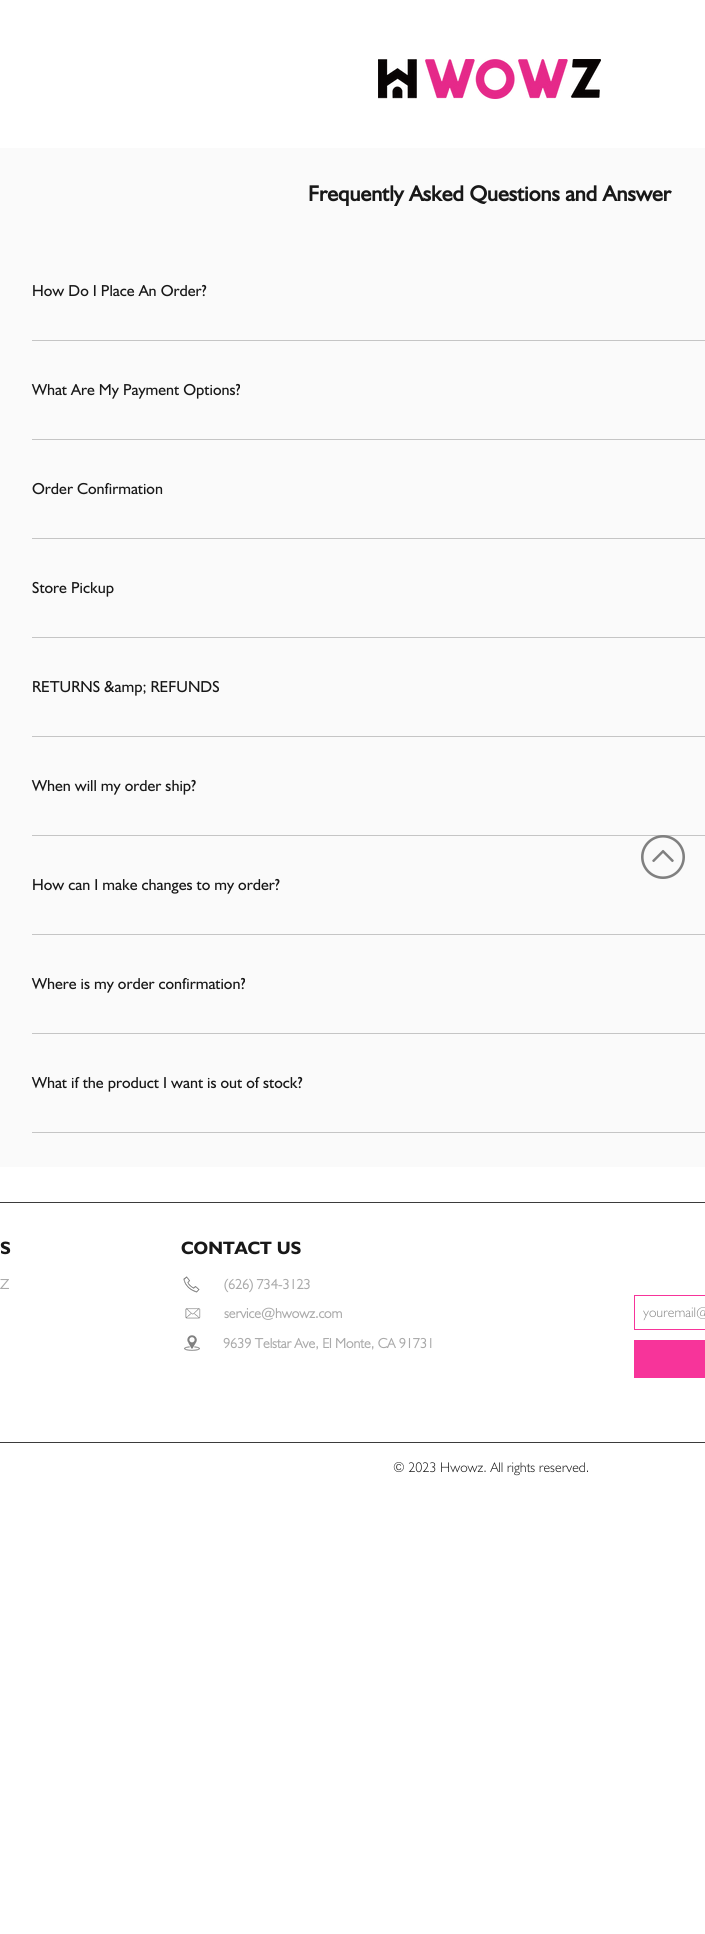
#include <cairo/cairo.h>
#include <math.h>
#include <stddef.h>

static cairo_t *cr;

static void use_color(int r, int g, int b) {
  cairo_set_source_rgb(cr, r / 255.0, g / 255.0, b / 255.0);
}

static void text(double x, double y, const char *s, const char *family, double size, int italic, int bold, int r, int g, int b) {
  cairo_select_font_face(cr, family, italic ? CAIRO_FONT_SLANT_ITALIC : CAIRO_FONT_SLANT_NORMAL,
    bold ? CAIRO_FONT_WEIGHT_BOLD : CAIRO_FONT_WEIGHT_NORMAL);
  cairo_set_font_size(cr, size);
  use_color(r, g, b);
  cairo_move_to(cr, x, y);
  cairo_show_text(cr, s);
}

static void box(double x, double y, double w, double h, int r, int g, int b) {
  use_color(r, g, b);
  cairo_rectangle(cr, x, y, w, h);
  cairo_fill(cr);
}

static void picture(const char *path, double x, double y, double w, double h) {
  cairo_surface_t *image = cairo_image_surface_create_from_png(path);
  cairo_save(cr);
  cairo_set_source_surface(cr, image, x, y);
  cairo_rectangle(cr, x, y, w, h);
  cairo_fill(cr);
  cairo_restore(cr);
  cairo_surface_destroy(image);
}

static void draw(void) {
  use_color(255, 255, 255);
  cairo_paint(cr);
  picture("img_01.png", 378, 59, 223, 40);
  box(0, 148, 705, 1019, 250, 250, 250);
  box(32, 340, 673, 1, 197, 197, 197);
  box(32, 439, 673, 1, 197, 197, 197);
  box(32, 538, 673, 1, 197, 197, 197);
  box(32, 637, 673, 1, 197, 197, 197);
  box(32, 736, 673, 1, 197, 197, 197);
  box(32, 835, 673, 1, 197, 197, 197);
  box(32, 934, 673, 1, 197, 197, 197);
  box(32, 1033, 673, 1, 197, 197, 197);
  box(32, 1132, 673, 1, 197, 197, 197);
  picture("img_02.png", 641, 835, 44, 44);
  box(0, 1202, 705, 1, 59, 59, 59);
  picture("img_03.png", 183, 1276, 17, 17);
  picture("img_04.png", 185, 1308, 16, 11);
  picture("img_05.png", 184, 1335, 16, 16);
  cairo_rectangle(cr, 634.5, 1295.5, 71, 34);
  use_color(247, 52, 154);
  cairo_set_line_width(cr, 1);
  cairo_stroke(cr);
  box(634, 1340, 71, 38, 247, 52, 154);
  box(0, 1442, 705, 1, 59, 59, 59);
  text(308, 201, "Frequently Asked Questions and Answer", "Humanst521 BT", 22, 0, 1, 24, 24, 24);
  text(32, 296, "How Do I Place An Order?", "Humanst521 BT", 16, 0, 0, 24, 24, 24);
  text(32, 395, "What Are My Payment Options?", "Humanst521 BT", 16, 0, 0, 24, 24, 24);
  text(32, 494, "Order Confirmation", "Humanst521 BT", 16, 0, 0, 24, 24, 24);
  text(32, 593, "Store Pickup", "Humanst521 BT", 16, 0, 0, 24, 24, 24);
  text(32, 692, "RETURNS &amp; REFUNDS", "Humanst521 BT", 16, 0, 0, 24, 24, 24);
  text(32, 791, "When will my order ship?", "Humanst521 BT", 16, 0, 0, 24, 24, 24);
  text(32, 890, "How can I make changes to my order?", "Humanst521 BT", 16, 0, 0, 24, 24, 24);
  text(32, 989, "Where is my order confirmation?", "Humanst521 BT", 16, 0, 0, 24, 24, 24);
  text(32, 1088, "What if the product I want is out of stock?", "Humanst521 BT", 16, 0, 0, 24, 24, 24);
  text(0, 1254, "S", "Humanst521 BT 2", 18, 0, 1, 24, 24, 24);
  text(181, 1254, "CONTACT US", "Humanst521 BT 2", 18, 0, 1, 24, 24, 24);
  text(0, 1289, "Z", "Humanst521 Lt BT", 14, 0, 1, 170, 170, 170);
  text(224, 1289, "(626) 734-3123", "Humanst521 Lt BT", 14, 0, 1, 170, 170, 170);
  text(224, 1318, "service@hwowz.com", "Humanst521 Lt BT", 14, 0, 1, 170, 170, 170);
  text(643, 1317, "youremail@", "Humanst521 Lt BT Light", 14, 0, 0, 140, 140, 140);
  text(223, 1348, "9639 Telstar Ave, El Monte, CA 91731", "Humanst521 Lt BT", 14, 0, 1, 170, 170, 170);
  text(393, 1472, "© 2023 Hwowz. All rights reserved.", "Humanst521 Lt BT Light", 14, 0, 0, 24, 24, 24);
}

int main(void) {
  cairo_surface_t *surface = cairo_image_surface_create(CAIRO_FORMAT_RGB24, 705, 1934);
  cr = cairo_create(surface);
  cairo_font_options_t *options = cairo_font_options_create();
  cairo_font_options_set_hint_metrics(options, CAIRO_HINT_METRICS_OFF);
  cairo_font_options_set_hint_style(options, CAIRO_HINT_STYLE_NONE);
  cairo_set_font_options(cr, options);
  cairo_set_miter_limit(cr, 4);
  draw();
  cairo_surface_write_to_png(surface, "out.png");
  cairo_font_options_destroy(options);
  cairo_destroy(cr);
  cairo_surface_destroy(surface);
  return 0;
}
